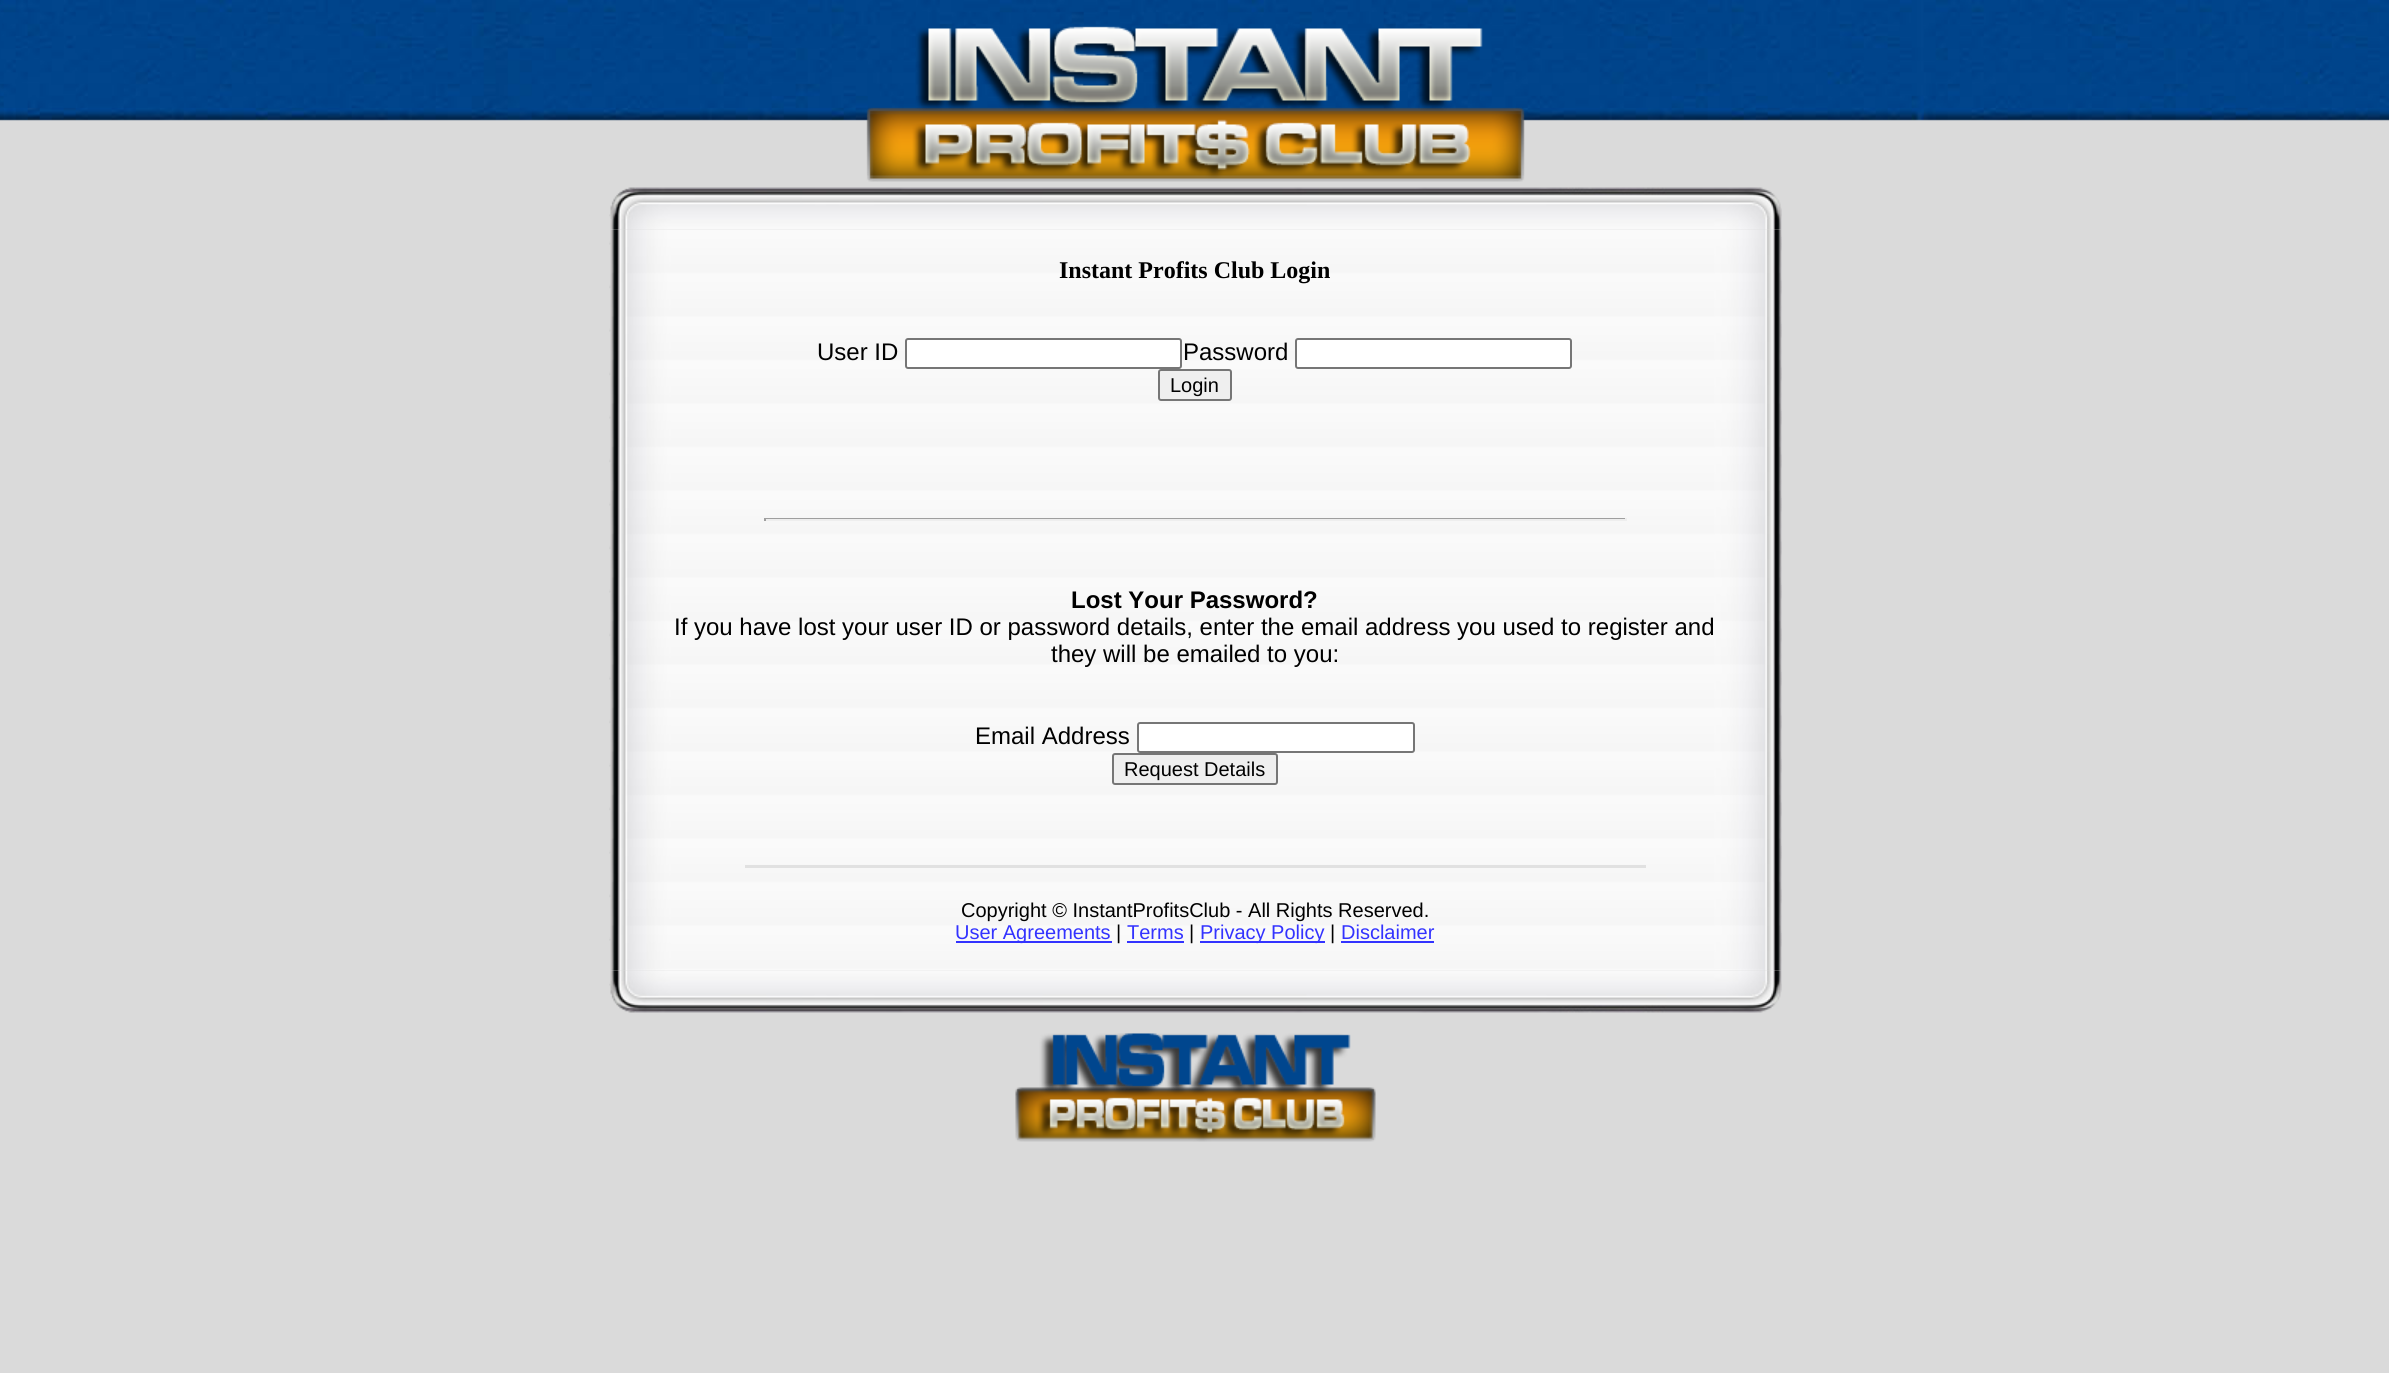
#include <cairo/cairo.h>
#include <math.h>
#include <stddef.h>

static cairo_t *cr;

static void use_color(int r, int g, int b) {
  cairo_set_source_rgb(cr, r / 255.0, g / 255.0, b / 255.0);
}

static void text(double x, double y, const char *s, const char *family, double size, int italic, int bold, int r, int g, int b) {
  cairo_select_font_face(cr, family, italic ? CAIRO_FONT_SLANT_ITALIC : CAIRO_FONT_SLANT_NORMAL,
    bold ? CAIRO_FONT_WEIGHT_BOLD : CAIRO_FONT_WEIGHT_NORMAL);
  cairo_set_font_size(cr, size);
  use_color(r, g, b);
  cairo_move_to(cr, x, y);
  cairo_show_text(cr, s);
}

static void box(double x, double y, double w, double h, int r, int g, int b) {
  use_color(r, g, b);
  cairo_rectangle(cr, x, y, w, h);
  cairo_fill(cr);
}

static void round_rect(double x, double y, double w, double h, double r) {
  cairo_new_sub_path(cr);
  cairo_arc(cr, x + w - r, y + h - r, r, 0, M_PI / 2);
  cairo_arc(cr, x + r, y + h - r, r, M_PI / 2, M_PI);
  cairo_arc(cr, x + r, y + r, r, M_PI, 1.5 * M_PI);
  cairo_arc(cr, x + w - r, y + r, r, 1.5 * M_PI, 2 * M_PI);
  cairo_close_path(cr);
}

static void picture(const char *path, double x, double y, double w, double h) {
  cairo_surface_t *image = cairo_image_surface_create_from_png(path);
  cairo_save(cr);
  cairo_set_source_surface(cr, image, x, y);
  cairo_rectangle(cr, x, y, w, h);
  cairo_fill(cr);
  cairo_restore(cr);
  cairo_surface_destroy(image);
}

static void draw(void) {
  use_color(218, 218, 218);
  cairo_paint(cr);
  picture("img_01.png", 0, 0, 2389, 121);
  picture("img_02.png", 866, 26, 659, 156);
  picture("img_04.png", 609, 229, 1173, 742);
  picture("img_03.png", 609, 187, 1173, 43);
  use_color(255, 255, 255);
  round_rect(906, 339, 275, 29, 2);
  cairo_fill_preserve(cr);
  use_color(118, 118, 118);
  cairo_stroke(cr);
  use_color(255, 255, 255);
  round_rect(1296, 339, 275, 29, 2);
  cairo_fill_preserve(cr);
  use_color(118, 118, 118);
  cairo_stroke(cr);
  use_color(239, 239, 239);
  round_rect(1159, 370, 72, 30, 2);
  cairo_fill_preserve(cr);
  use_color(118, 118, 118);
  cairo_stroke(cr);
  box(764, 518, 862, 1, 159, 159, 159);
  box(1625, 518, 2, 3, 238, 238, 238);
  box(764, 519, 862, 2, 238, 238, 238);
  box(764, 518, 2, 3, 159, 159, 159);
  use_color(255, 255, 255);
  round_rect(1138, 723, 276, 29, 2);
  cairo_fill_preserve(cr);
  use_color(118, 118, 118);
  cairo_stroke(cr);
  use_color(239, 239, 239);
  round_rect(1113, 754, 164, 30, 2);
  cairo_fill_preserve(cr);
  use_color(118, 118, 118);
  cairo_stroke(cr);
  box(745, 865, 901, 3, 225, 225, 225);
  box(956, 941, 156, 2, 51, 51, 255);
  box(1127, 941, 57, 2, 51, 51, 255);
  box(1200, 941, 125, 2, 51, 51, 255);
  box(1341, 941, 93, 2, 51, 51, 255);
  picture("img_05.png", 609, 970, 1173, 43);
  picture("img_06.png", 1015, 1033, 361, 109);
  text(1059, 278, "Instant Profits Club Login", "Liberation Serif", 24, 0, 1, 0, 0, 0);
  text(817, 360, "User ID", "Liberation Sans", 24, 0, 0, 0, 0, 0);
  text(1183, 360, "Password", "Liberation Sans", 24, 0, 0, 0, 0, 0);
  text(1170, 392, "Login", "Liberation Sans", 20, 0, 0, 0, 0, 0);
  text(1071, 608, "Lost Your Password?", "Liberation Sans", 24, 0, 1, 0, 0, 0);
  text(674, 635, "If you have lost your user ID or password details, enter the email address you used to register and", "Liberation Sans", 24, 0, 0, 0, 0, 0);
  text(1051, 662, "they will be emailed to you:", "Liberation Sans", 24, 0, 0, 0, 0, 0);
  text(975, 744, "Email Address", "Liberation Sans", 24, 0, 0, 0, 0, 0);
  text(1124, 776, "Request Details", "Liberation Sans", 20, 0, 0, 0, 0, 0);
  text(961, 917, "Copyright © InstantProfitsClub - All Rights Reserved.", "Liberation Sans", 20, 0, 0, 0, 0, 0);
  text(955, 939, "User Agreements", "Liberation Sans", 20, 0, 0, 51, 51, 255);
  text(1116, 939, "|", "Liberation Sans", 20, 0, 0, 0, 0, 0);
  text(1127, 939, "Terms", "Liberation Sans", 20, 0, 0, 51, 51, 255);
  text(1189, 939, "|", "Liberation Sans", 20, 0, 0, 0, 0, 0);
  text(1200, 939, "Privacy Policy", "Liberation Sans", 20, 0, 0, 51, 51, 255);
  text(1330, 939, "|", "Liberation Sans", 20, 0, 0, 0, 0, 0);
  text(1341, 939, "Disclaimer", "Liberation Sans", 20, 0, 0, 51, 51, 255);
}

int main(void) {
  cairo_surface_t *surface = cairo_image_surface_create(CAIRO_FORMAT_RGB24, 2389, 1373);
  cr = cairo_create(surface);
  cairo_font_options_t *options = cairo_font_options_create();
  cairo_font_options_set_hint_metrics(options, CAIRO_HINT_METRICS_OFF);
  cairo_font_options_set_hint_style(options, CAIRO_HINT_STYLE_NONE);
  cairo_set_font_options(cr, options);
  cairo_set_miter_limit(cr, 4);
  draw();
  cairo_surface_write_to_png(surface, "out.png");
  cairo_font_options_destroy(options);
  cairo_destroy(cr);
  cairo_surface_destroy(surface);
  return 0;
}
